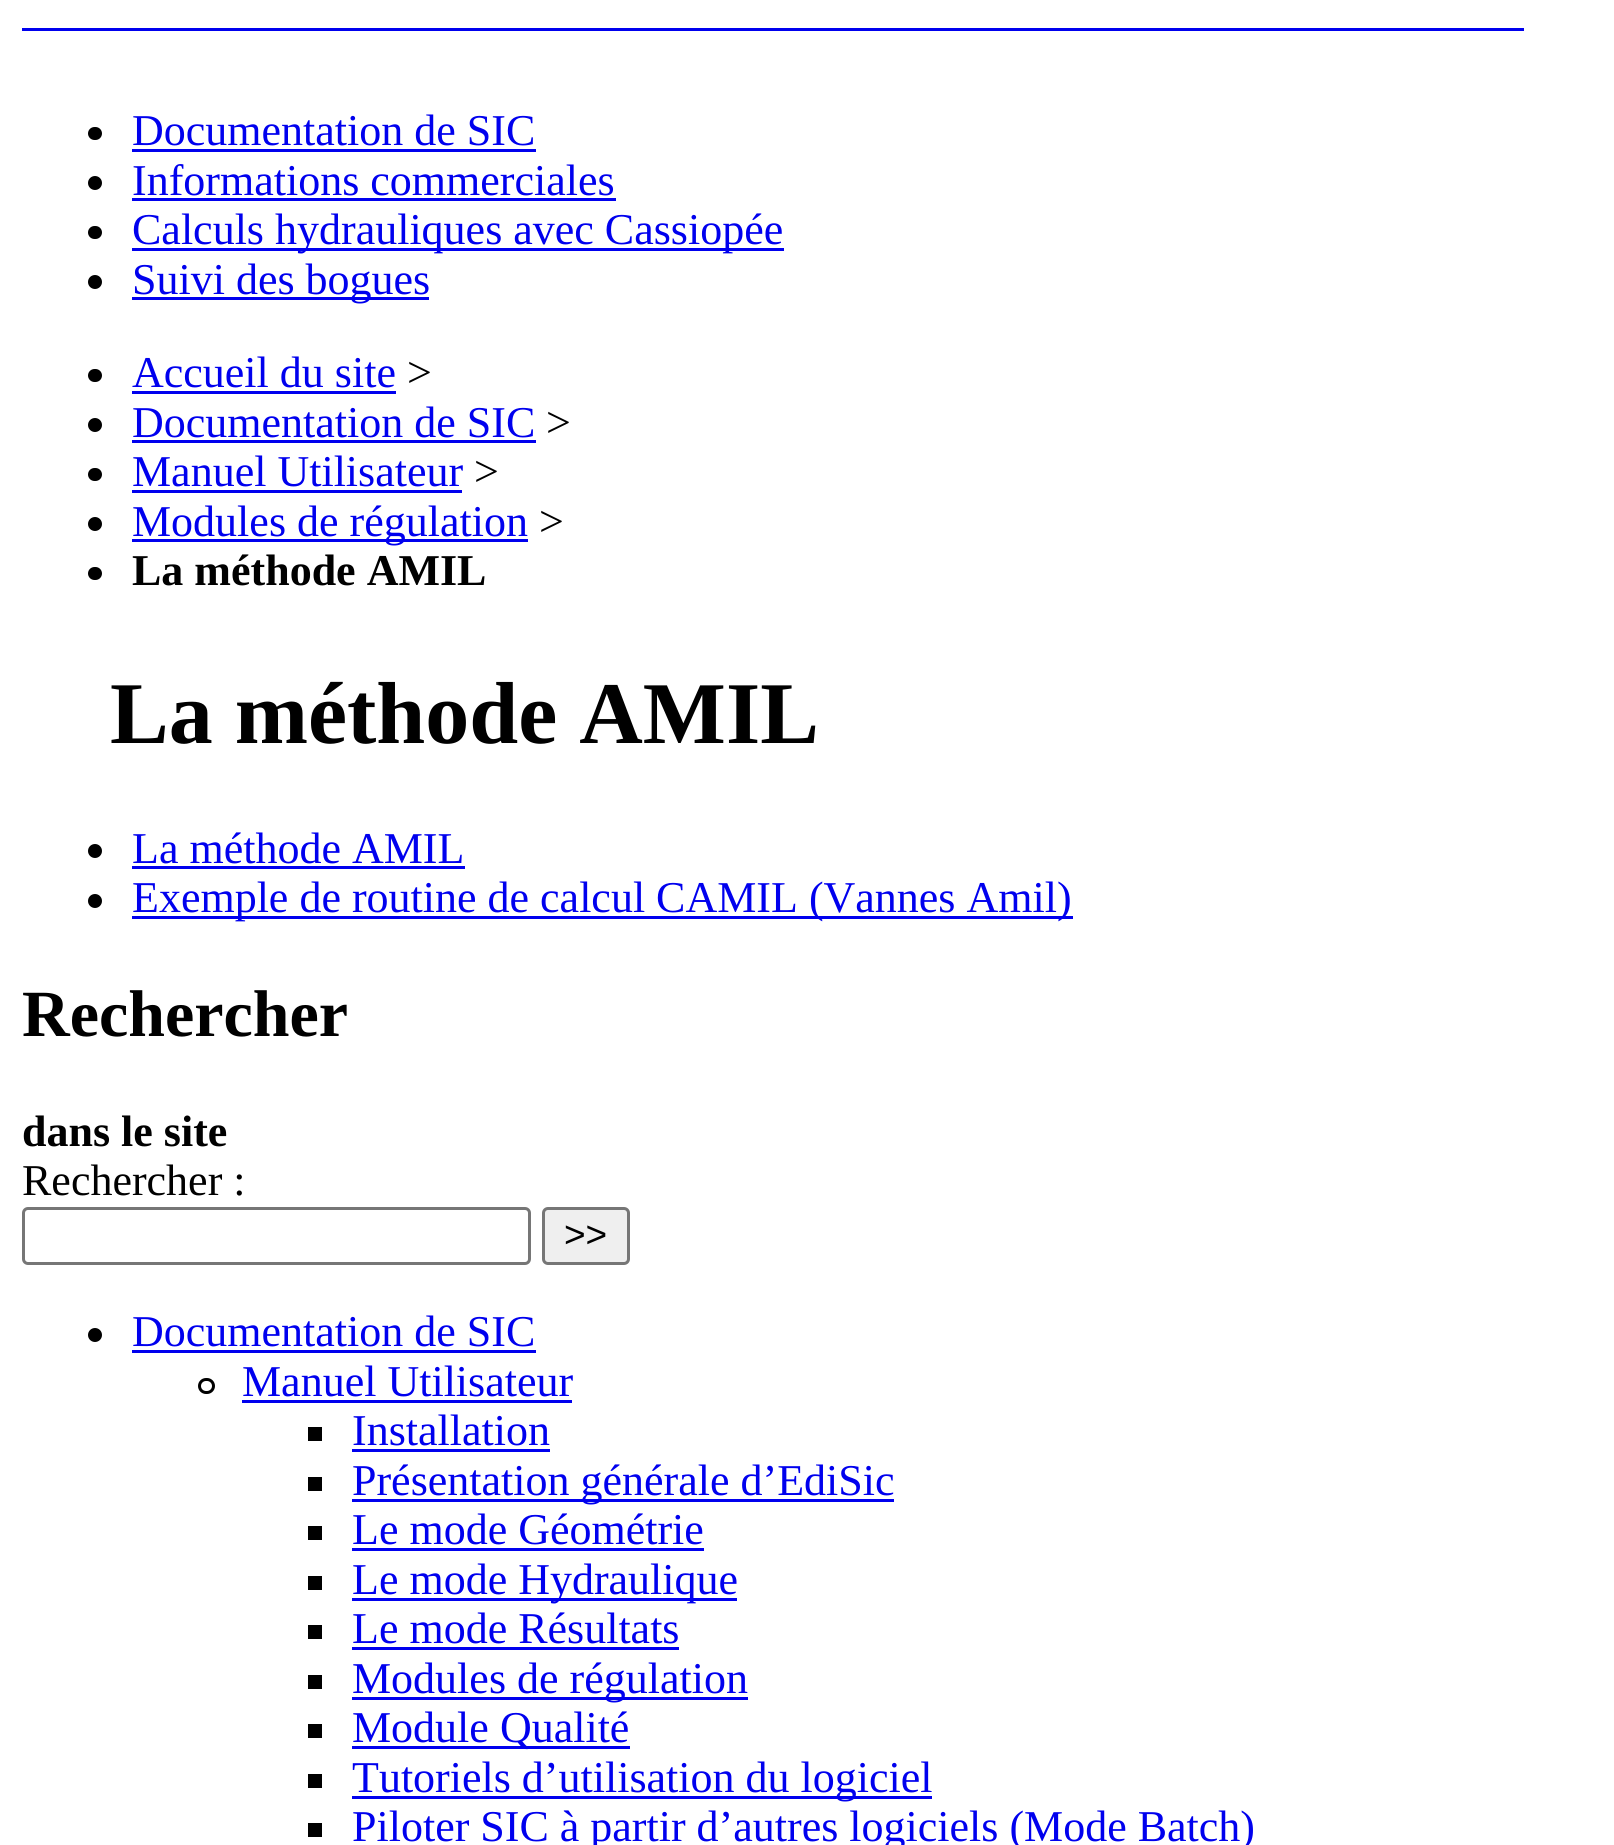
#include <cairo/cairo.h>
#include <math.h>
#include <stddef.h>

static cairo_t *cr;

static void use_color(int r, int g, int b) {
  cairo_set_source_rgb(cr, r / 255.0, g / 255.0, b / 255.0);
}

static void text(double x, double y, const char *s, const char *family, double size, int italic, int bold, int r, int g, int b) {
  cairo_select_font_face(cr, family, italic ? CAIRO_FONT_SLANT_ITALIC : CAIRO_FONT_SLANT_NORMAL,
    bold ? CAIRO_FONT_WEIGHT_BOLD : CAIRO_FONT_WEIGHT_NORMAL);
  cairo_set_font_size(cr, size);
  use_color(r, g, b);
  cairo_move_to(cr, x, y);
  cairo_show_text(cr, s);
}

static void box(double x, double y, double w, double h, int r, int g, int b) {
  use_color(r, g, b);
  cairo_rectangle(cr, x, y, w, h);
  cairo_fill(cr);
}

static void round_rect(double x, double y, double w, double h, double r) {
  cairo_new_sub_path(cr);
  cairo_arc(cr, x + w - r, y + h - r, r, 0, M_PI / 2);
  cairo_arc(cr, x + r, y + h - r, r, M_PI / 2, M_PI);
  cairo_arc(cr, x + r, y + r, r, M_PI, 1.5 * M_PI);
  cairo_arc(cr, x + w - r, y + r, r, 1.5 * M_PI, 2 * M_PI);
  cairo_close_path(cr);
}

static void draw(void) {
  use_color(255, 255, 255);
  cairo_paint(cr);
  box(22, 28, 1502, 3, 0, 0, 238);
  use_color(0, 0, 0);
  round_rect(88, 127, 14, 13, 6.5);
  cairo_fill(cr);
  box(132, 149, 404, 3, 0, 0, 238);
  use_color(0, 0, 0);
  cairo_arc(cr, 95, 183, 7, 0, 2 * M_PI);
  cairo_fill(cr);
  box(132, 198, 484, 3, 0, 0, 238);
  use_color(0, 0, 0);
  round_rect(88, 226, 14, 13, 6.5);
  cairo_fill(cr);
  box(132, 248, 652, 3, 0, 0, 238);
  use_color(0, 0, 0);
  cairo_arc(cr, 95, 282, 7, 0, 2 * M_PI);
  cairo_fill(cr);
  box(132, 297, 297, 3, 0, 0, 238);
  use_color(0, 0, 0);
  round_rect(88, 369, 14, 13, 6.5);
  cairo_fill(cr);
  box(132, 391, 264, 3, 0, 0, 238);
  use_color(0, 0, 0);
  cairo_arc(cr, 95, 425, 7, 0, 2 * M_PI);
  cairo_fill(cr);
  box(132, 440, 404, 3, 0, 0, 238);
  use_color(0, 0, 0);
  round_rect(88, 468, 14, 13, 6.5);
  cairo_fill(cr);
  box(132, 490, 330, 3, 0, 0, 238);
  use_color(0, 0, 0);
  cairo_arc(cr, 95, 524, 7, 0, 2 * M_PI);
  cairo_fill(cr);
  box(132, 539, 396, 3, 0, 0, 238);
  use_color(0, 0, 0);
  round_rect(88, 567, 14, 13, 6.5);
  cairo_fill(cr);
  cairo_arc(cr, 95, 851, 7, 0, 2 * M_PI);
  cairo_fill(cr);
  box(132, 866, 333, 3, 0, 0, 238);
  use_color(0, 0, 0);
  cairo_arc(cr, 95, 901, 7, 0, 2 * M_PI);
  cairo_fill(cr);
  box(132, 916, 941, 3, 0, 0, 238);
  round_rect(23.5, 1208.5, 506, 55, 4.5);
  use_color(118, 118, 118);
  cairo_set_line_width(cr, 3);
  cairo_stroke(cr);
  use_color(239, 239, 239);
  round_rect(543.5, 1208.5, 85, 55, 4.5);
  cairo_fill_preserve(cr);
  use_color(118, 118, 118);
  cairo_stroke(cr);
  use_color(0, 0, 0);
  cairo_arc(cr, 95, 1335, 7, 0, 2 * M_PI);
  cairo_fill(cr);
  box(132, 1350, 404, 3, 0, 0, 238);
  round_rect(199.5, 1379.5, 14, 13, 6.5);
  use_color(0, 0, 0);
  cairo_stroke(cr);
  box(242, 1400, 330, 3, 0, 0, 238);
  box(308, 1427, 14, 14, 0, 0, 0);
  box(352, 1449, 198, 3, 0, 0, 238);
  box(308, 1477, 14, 14, 0, 0, 0);
  box(352, 1499, 542, 3, 0, 0, 238);
  box(308, 1526, 14, 14, 0, 0, 0);
  box(352, 1548, 352, 3, 0, 0, 238);
  box(308, 1576, 14, 14, 0, 0, 0);
  box(352, 1598, 385, 3, 0, 0, 238);
  box(308, 1625, 14, 14, 0, 0, 0);
  box(352, 1647, 327, 3, 0, 0, 238);
  box(308, 1675, 14, 14, 0, 0, 0);
  box(352, 1697, 396, 3, 0, 0, 238);
  box(308, 1724, 14, 14, 0, 0, 0);
  box(352, 1746, 278, 3, 0, 0, 238);
  box(308, 1774, 14, 14, 0, 0, 0);
  box(352, 1796, 580, 3, 0, 0, 238);
  box(308, 1823, 14, 14, 0, 0, 0);
  text(132, 145, "Documentation de SIC", "Liberation Serif", 44, 0, 0, 0, 0, 238);
  text(132, 195, "Informations commerciales", "Liberation Serif", 44, 0, 0, 0, 0, 238);
  text(132, 244, "Calculs hydrauliques avec Cassiopée", "Liberation Serif", 44, 0, 0, 0, 0, 238);
  text(132, 294, "Suivi des bogues", "Liberation Serif", 44, 0, 0, 0, 0, 238);
  text(132, 387, "Accueil du site", "Liberation Serif", 44, 0, 0, 0, 0, 238);
  text(407, 387, ">", "Liberation Serif", 44, 0, 0, 0, 0, 0);
  text(132, 437, "Documentation de SIC", "Liberation Serif", 44, 0, 0, 0, 0, 238);
  text(546, 437, ">", "Liberation Serif", 44, 0, 0, 0, 0, 0);
  text(132, 486, "Manuel Utilisateur", "Liberation Serif", 44, 0, 0, 0, 0, 238);
  text(474, 486, ">", "Liberation Serif", 44, 0, 0, 0, 0, 0);
  text(132, 536, "Modules de régulation", "Liberation Serif", 44, 0, 0, 0, 0, 238);
  text(539, 536, ">", "Liberation Serif", 44, 0, 0, 0, 0, 0);
  text(132, 585, "La méthode AMIL", "Liberation Serif", 44, 0, 1, 0, 0, 0);
  text(110, 743, "La méthode AMIL", "Liberation Serif", 88, 0, 1, 0, 0, 0);
  text(132, 863, "La méthode AMIL", "Liberation Serif", 44, 0, 0, 0, 0, 238);
  text(132, 912, "Exemple de routine de calcul CAMIL (Vannes Amil)", "Liberation Serif", 44, 0, 0, 0, 0, 238);
  text(22, 1036, "Rechercher", "Liberation Serif", 66, 0, 1, 0, 0, 0);
  text(22, 1146, "dans le site", "Liberation Serif", 44, 0, 1, 0, 0, 0);
  text(22, 1195, "Rechercher :", "Liberation Serif", 44, 0, 0, 0, 0, 0);
  text(564, 1247, ">>", "Liberation Sans", 37, 0, 0, 0, 0, 0);
  text(132, 1346, "Documentation de SIC", "Liberation Serif", 44, 0, 0, 0, 0, 238);
  text(242, 1396, "Manuel Utilisateur", "Liberation Serif", 44, 0, 0, 0, 0, 238);
  text(352, 1445, "Installation", "Liberation Serif", 44, 0, 0, 0, 0, 238);
  text(352, 1495, "Présentation générale d’EdiSic", "Liberation Serif", 44, 0, 0, 0, 0, 238);
  text(352, 1544, "Le mode Géométrie", "Liberation Serif", 44, 0, 0, 0, 0, 238);
  text(352, 1594, "Le mode Hydraulique", "Liberation Serif", 44, 0, 0, 0, 0, 238);
  text(352, 1643, "Le mode Résultats", "Liberation Serif", 44, 0, 0, 0, 0, 238);
  text(352, 1693, "Modules de régulation", "Liberation Serif", 44, 0, 0, 0, 0, 238);
  text(352, 1742, "Module Qualité", "Liberation Serif", 44, 0, 0, 0, 0, 238);
  text(352, 1792, "Tutoriels d’utilisation du logiciel", "Liberation Serif", 44, 0, 0, 0, 0, 238);
  text(352, 1841, "Piloter SIC à partir d’autres logiciels (Mode Batch)", "Liberation Serif", 44, 0, 0, 0, 0, 238);
}

int main(void) {
  cairo_surface_t *surface = cairo_image_surface_create(CAIRO_FORMAT_RGB24, 1614, 1845);
  cr = cairo_create(surface);
  cairo_font_options_t *options = cairo_font_options_create();
  cairo_font_options_set_hint_metrics(options, CAIRO_HINT_METRICS_OFF);
  cairo_font_options_set_hint_style(options, CAIRO_HINT_STYLE_NONE);
  cairo_set_font_options(cr, options);
  cairo_set_miter_limit(cr, 4);
  draw();
  cairo_surface_write_to_png(surface, "out.png");
  cairo_font_options_destroy(options);
  cairo_destroy(cr);
  cairo_surface_destroy(surface);
  return 0;
}
